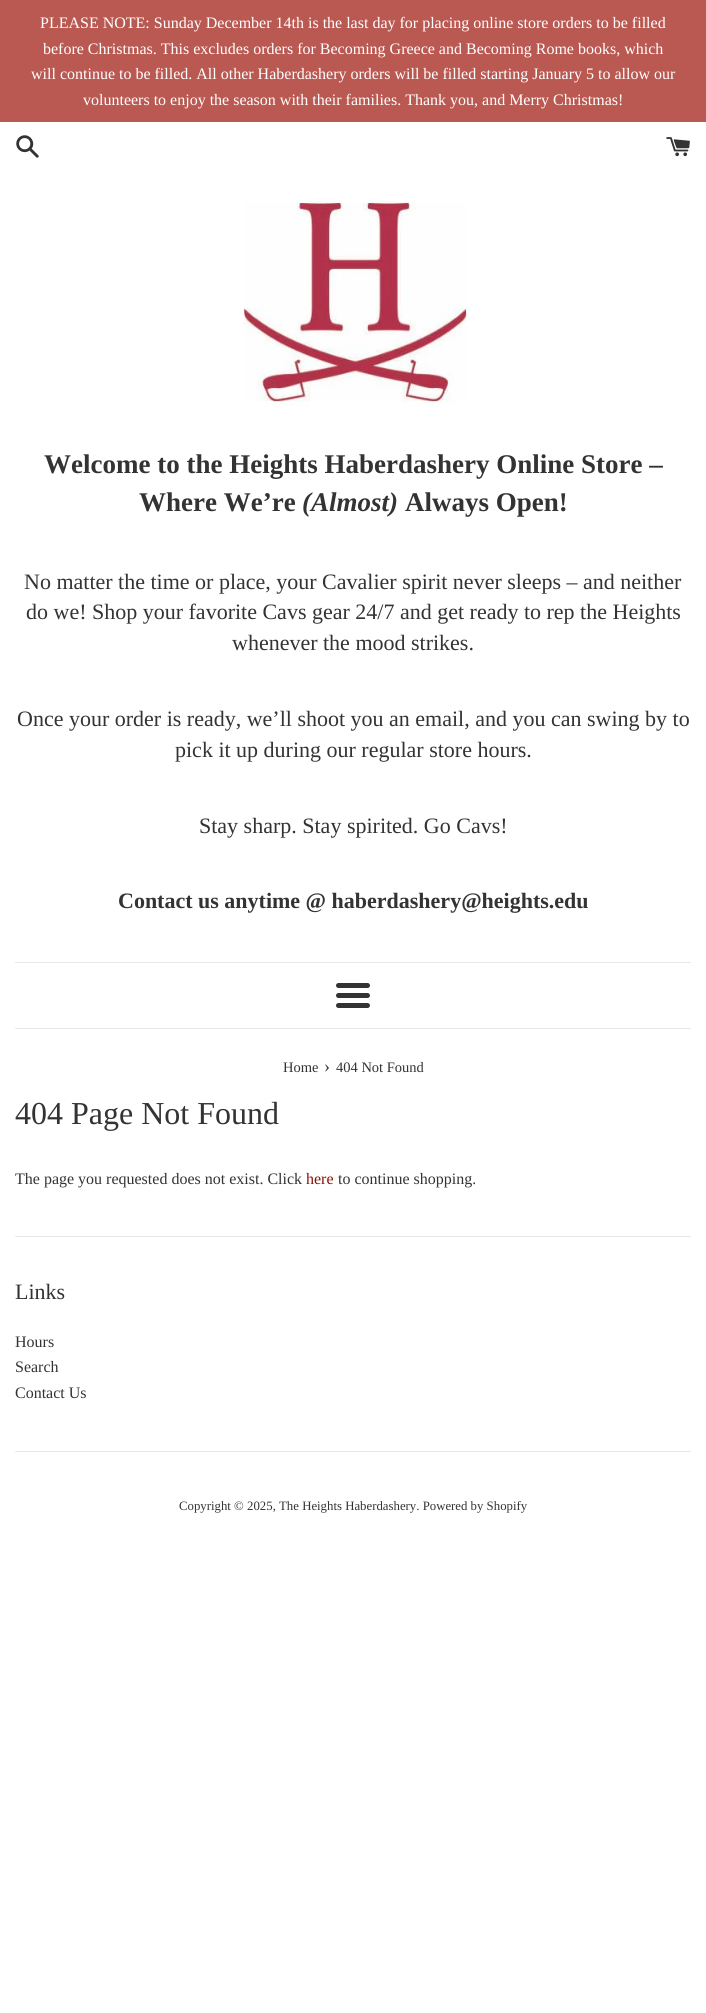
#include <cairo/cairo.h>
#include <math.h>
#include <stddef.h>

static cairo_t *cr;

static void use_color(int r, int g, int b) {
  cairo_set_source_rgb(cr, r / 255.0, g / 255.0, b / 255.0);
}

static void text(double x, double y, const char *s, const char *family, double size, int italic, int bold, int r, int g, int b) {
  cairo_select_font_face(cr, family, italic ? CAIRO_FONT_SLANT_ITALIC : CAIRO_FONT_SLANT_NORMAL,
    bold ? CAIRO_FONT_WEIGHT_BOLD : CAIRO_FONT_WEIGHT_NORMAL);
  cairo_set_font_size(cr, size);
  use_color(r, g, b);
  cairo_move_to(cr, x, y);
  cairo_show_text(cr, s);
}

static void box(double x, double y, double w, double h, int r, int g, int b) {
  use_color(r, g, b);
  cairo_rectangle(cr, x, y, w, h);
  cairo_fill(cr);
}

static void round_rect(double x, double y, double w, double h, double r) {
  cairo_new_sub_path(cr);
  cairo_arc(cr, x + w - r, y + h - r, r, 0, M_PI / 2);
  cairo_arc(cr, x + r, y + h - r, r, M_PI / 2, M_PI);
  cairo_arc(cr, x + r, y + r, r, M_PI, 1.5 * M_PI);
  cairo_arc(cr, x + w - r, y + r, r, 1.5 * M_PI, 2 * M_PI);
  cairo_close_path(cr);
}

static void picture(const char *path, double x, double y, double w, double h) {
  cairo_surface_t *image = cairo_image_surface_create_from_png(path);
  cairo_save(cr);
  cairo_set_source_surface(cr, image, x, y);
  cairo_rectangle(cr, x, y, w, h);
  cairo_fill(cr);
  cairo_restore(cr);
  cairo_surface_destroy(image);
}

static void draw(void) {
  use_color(255, 255, 255);
  cairo_paint(cr);
  box(0, 0, 706, 122, 186, 89, 82);
  picture("img_01.png", 16, 135, 23, 23);
  picture("img_02.png", 666, 137, 24, 20);
  picture("img_03.png", 243, 201, 225, 206);
  box(15, 962, 676, 1, 232, 232, 232);
  use_color(51, 51, 51);
  round_rect(336, 983, 34, 5, 2.5);
  cairo_fill(cr);
  round_rect(336, 993, 34, 5, 2.5);
  cairo_fill(cr);
  round_rect(336, 1003, 34, 5, 2.5);
  cairo_fill(cr);
  box(15, 1028, 676, 1, 232, 232, 232);
  box(15, 1236, 676, 1, 232, 232, 232);
  box(15, 1451, 676, 1, 232, 232, 232);
  text(40, 28, "PLEASE NOTE: Sunday December 14th is the last day for placing online store orders to be filled", "Liberation Serif", 16, 0, 0, 255, 255, 255);
  text(43, 54, "before Christmas. This excludes orders for Becoming Greece and Becoming Rome books, which", "Liberation Serif", 16, 0, 0, 255, 255, 255);
  text(31, 79, "will continue to be filled. All other Haberdashery orders will be filled starting January 5 to allow our", "Liberation Serif", 16, 0, 0, 255, 255, 255);
  text(83, 105, "volunteers to enjoy the season with their families. Thank you, and Merry Christmas!", "Liberation Serif", 16, 0, 0, 255, 255, 255);
  text(44, 473, "Welcome to the Heights Haberdashery Online Store –", "Liberation Serif", 27, 0, 1, 51, 51, 51);
  text(139, 511, "Where We’re", "Liberation Serif", 27, 0, 1, 51, 51, 51);
  text(302, 511, "(Almost)", "Liberation Serif", 27, 1, 1, 51, 51, 51);
  text(405, 511, "Always Open!", "Liberation Serif", 27, 0, 1, 51, 51, 51);
  text(24, 589, "No matter the time or place, your Cavalier spirit never sleeps – and neither", "Liberation Serif", 22, 0, 0, 51, 51, 51);
  text(26, 619, "do we! Shop your favorite Cavs gear 24/7 and get ready to rep the Heights", "Liberation Serif", 22, 0, 0, 51, 51, 51);
  text(232, 650, "whenever the mood strikes.", "Liberation Serif", 22, 0, 0, 51, 51, 51);
  text(17, 726, "Once your order is ready, we’ll shoot you an email, and you can swing by to", "Liberation Serif", 22, 0, 0, 51, 51, 51);
  text(175, 757, "pick it up during our regular store hours.", "Liberation Serif", 22, 0, 0, 51, 51, 51);
  text(199, 833, "Stay sharp. Stay spirited. Go Cavs!", "Liberation Serif", 22, 0, 0, 51, 51, 51);
  text(118, 908, "Contact us anytime @ haberdashery@heights.edu", "Liberation Serif", 22, 0, 1, 51, 51, 51);
  text(283, 1072, "Home", "Liberation Serif", 14.5, 0, 0, 51, 51, 51);
  text(324, 1072, "›", "Liberation Serif", 18, 0, 0, 51, 51, 51);
  text(336, 1072, "404 Not Found", "Liberation Serif", 14.5, 0, 0, 51, 51, 51);
  text(15, 1124, "404 Page Not Found", "Liberation Serif", 32, 0, 0, 51, 51, 51);
  text(15, 1184, "The page you requested does not exist. Click", "Liberation Serif", 16, 0, 0, 51, 51, 51);
  text(306, 1184, "here", "Liberation Serif", 16, 0, 0, 137, 16, 7);
  text(338, 1184, "to continue shopping.", "Liberation Serif", 16, 0, 0, 51, 51, 51);
  text(15, 1299, "Links", "Liberation Serif", 22, 0, 0, 51, 51, 51);
  text(15, 1347, "Hours", "Liberation Serif", 16, 0, 0, 51, 51, 51);
  text(15, 1372, "Search", "Liberation Serif", 16, 0, 0, 51, 51, 51);
  text(15, 1398, "Contact Us", "Liberation Serif", 16, 0, 0, 51, 51, 51);
  text(179, 1510, "Copyright © 2025, The Heights Haberdashery. Powered by Shopify", "Liberation Serif", 12.8, 0, 0, 51, 51, 51);
}

int main(void) {
  cairo_surface_t *surface = cairo_image_surface_create(CAIRO_FORMAT_RGB24, 706, 2013);
  cr = cairo_create(surface);
  cairo_font_options_t *options = cairo_font_options_create();
  cairo_font_options_set_hint_metrics(options, CAIRO_HINT_METRICS_OFF);
  cairo_font_options_set_hint_style(options, CAIRO_HINT_STYLE_NONE);
  cairo_set_font_options(cr, options);
  cairo_set_miter_limit(cr, 4);
  draw();
  cairo_surface_write_to_png(surface, "out.png");
  cairo_font_options_destroy(options);
  cairo_destroy(cr);
  cairo_surface_destroy(surface);
  return 0;
}
